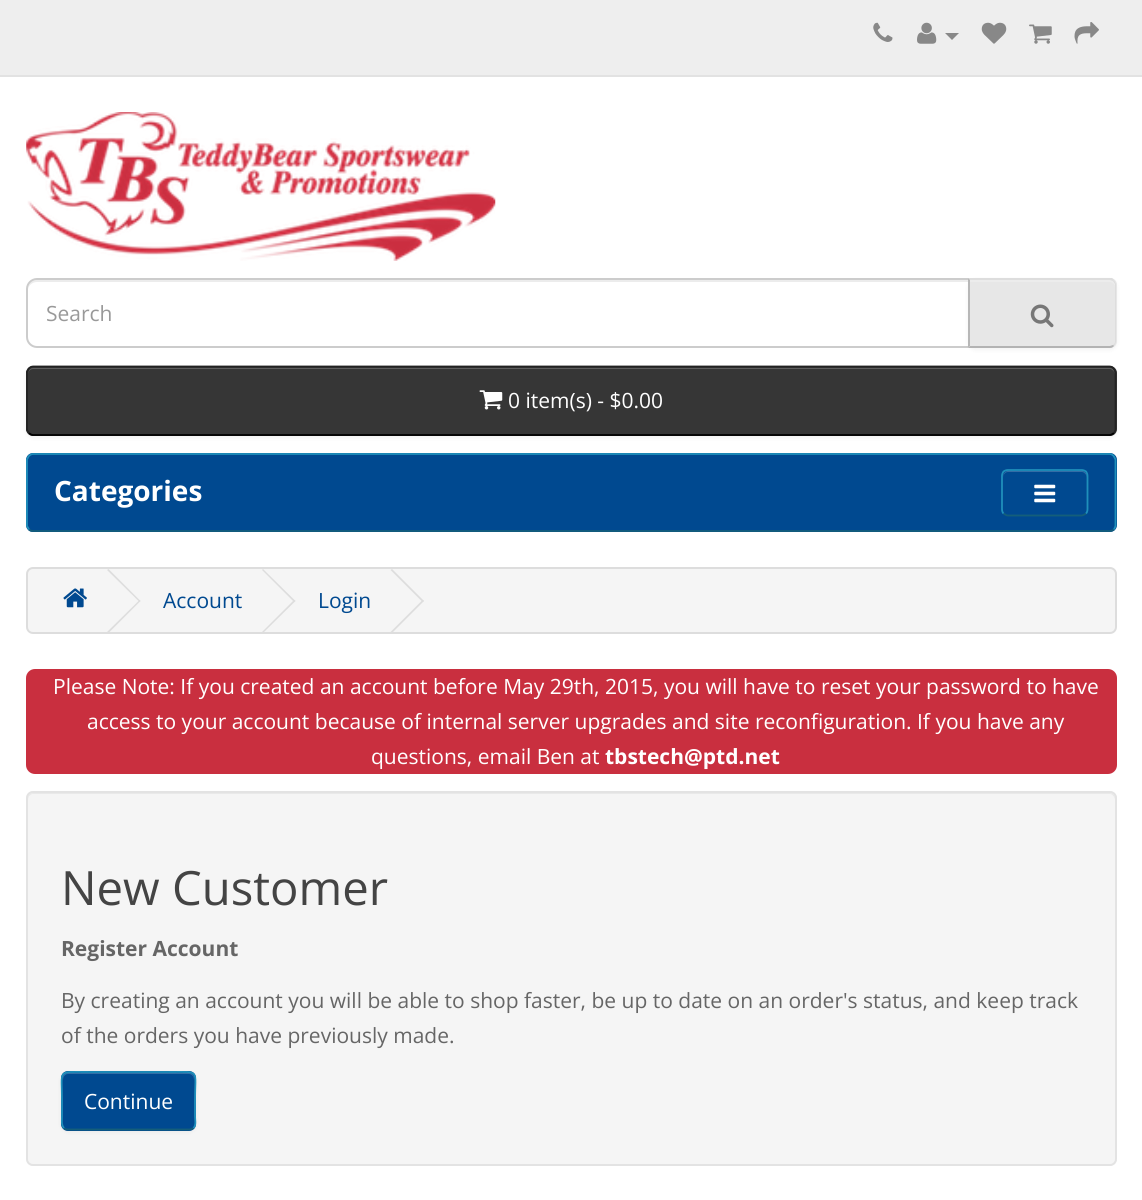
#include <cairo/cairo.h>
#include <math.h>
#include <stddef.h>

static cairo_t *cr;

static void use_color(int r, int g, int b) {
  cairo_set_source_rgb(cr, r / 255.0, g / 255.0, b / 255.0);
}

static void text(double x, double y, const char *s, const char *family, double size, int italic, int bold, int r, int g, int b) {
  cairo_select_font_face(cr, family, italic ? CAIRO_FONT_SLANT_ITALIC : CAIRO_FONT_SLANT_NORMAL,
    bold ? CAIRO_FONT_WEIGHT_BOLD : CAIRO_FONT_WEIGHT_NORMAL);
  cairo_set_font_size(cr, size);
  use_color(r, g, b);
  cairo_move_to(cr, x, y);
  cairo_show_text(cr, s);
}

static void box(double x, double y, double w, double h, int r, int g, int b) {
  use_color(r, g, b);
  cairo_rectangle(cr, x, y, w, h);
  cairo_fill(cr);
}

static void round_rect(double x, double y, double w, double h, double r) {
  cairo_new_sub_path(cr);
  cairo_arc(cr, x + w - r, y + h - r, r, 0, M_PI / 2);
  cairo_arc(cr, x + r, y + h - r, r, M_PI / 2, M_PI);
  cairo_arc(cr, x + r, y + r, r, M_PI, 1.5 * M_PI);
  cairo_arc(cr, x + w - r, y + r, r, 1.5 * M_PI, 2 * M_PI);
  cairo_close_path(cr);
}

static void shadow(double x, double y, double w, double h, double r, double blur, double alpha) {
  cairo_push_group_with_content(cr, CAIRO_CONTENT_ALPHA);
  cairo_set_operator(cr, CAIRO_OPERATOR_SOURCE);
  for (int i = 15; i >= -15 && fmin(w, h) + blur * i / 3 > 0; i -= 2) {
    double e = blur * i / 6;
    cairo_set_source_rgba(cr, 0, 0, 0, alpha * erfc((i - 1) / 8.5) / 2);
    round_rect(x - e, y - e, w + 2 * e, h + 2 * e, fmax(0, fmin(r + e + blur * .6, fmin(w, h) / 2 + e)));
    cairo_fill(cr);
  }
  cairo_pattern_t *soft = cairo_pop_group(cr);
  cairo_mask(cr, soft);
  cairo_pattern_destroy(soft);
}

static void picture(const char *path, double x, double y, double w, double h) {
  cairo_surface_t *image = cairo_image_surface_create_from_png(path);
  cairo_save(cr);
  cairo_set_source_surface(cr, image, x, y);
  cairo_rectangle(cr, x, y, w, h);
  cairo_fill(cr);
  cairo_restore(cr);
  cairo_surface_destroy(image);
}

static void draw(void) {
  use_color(255, 255, 255);
  cairo_paint(cr);
  box(0, 0, 1142, 75, 238, 238, 238);
  box(0, 75, 1142, 2, 226, 226, 226);
  picture("img_01.png", 873, 22, 20, 20);
  picture("img_02.png", 917, 22, 20, 22);
  use_color(136, 136, 136);
  cairo_new_path(cr);
  cairo_move_to(cr, 945, 33);
  cairo_line_to(cr, 959, 33);
  cairo_line_to(cr, 952, 40);
  cairo_close_path(cr);
  cairo_fill(cr);
  picture("img_03.png", 981, 22, 26, 22);
  picture("img_04.png", 1029, 24, 23, 20);
  picture("img_05.png", 1074, 22, 25, 22);
  picture("img_06.png", 26, 112, 470, 149);
  use_color(236, 236, 236);
  cairo_new_path(cr);
  cairo_move_to(cr, 37, 282);
  cairo_line_to(cr, 968, 282);
  cairo_line_to(cr, 968, 280);
  cairo_line_to(cr, 37, 280);
  cairo_curve_to(cr, 31, 280, 28, 285, 28, 290);
  cairo_curve_to(cr, 28, 286, 32, 282, 37, 282);
  cairo_close_path(cr);
  cairo_fill(cr);
  cairo_new_path(cr);
  cairo_move_to(cr, 37, 279);
  cairo_line_to(cr, 969, 279);
  cairo_line_to(cr, 969, 347);
  cairo_line_to(cr, 37, 347);
  cairo_curve_to(cr, 31.5, 347, 27, 342.5, 27, 337);
  cairo_line_to(cr, 27, 289);
  cairo_curve_to(cr, 27, 283.5, 31.5, 279, 37, 279);
  cairo_close_path(cr);
  use_color(204, 204, 204);
  cairo_stroke(cr);
  use_color(0, 0, 0);
  shadow(968, 280, 149, 70, 7, 2, 0.05);
  use_color(231, 231, 231);
  cairo_new_path(cr);
  cairo_move_to(cr, 968, 278);
  cairo_line_to(cr, 1110, 278);
  cairo_curve_to(cr, 1114, 278, 1117, 281, 1117, 285);
  cairo_line_to(cr, 1117, 341);
  cairo_curve_to(cr, 1117, 345, 1114, 348, 1110, 348);
  cairo_line_to(cr, 968, 348);
  cairo_close_path(cr);
  cairo_fill(cr);
  use_color(236, 236, 236);
  cairo_new_path(cr);
  cairo_move_to(cr, 970, 282);
  cairo_line_to(cr, 1110, 282);
  cairo_curve_to(cr, 1112, 282, 1115, 284, 1115, 287);
  cairo_line_to(cr, 1115, 285);
  cairo_curve_to(cr, 1115, 282, 1113, 280, 1110, 280);
  cairo_line_to(cr, 970, 280);
  cairo_close_path(cr);
  cairo_fill(cr);
  use_color(221, 221, 221);
  cairo_new_path(cr);
  cairo_move_to(cr, 970, 280);
  cairo_line_to(cr, 968, 278);
  cairo_line_to(cr, 1112, 278);
  cairo_line_to(cr, 1114, 280);
  cairo_line_to(cr, 1113, 281);
  cairo_line_to(cr, 1110, 280);
  cairo_close_path(cr);
  cairo_fill(cr);
  cairo_new_path(cr);
  cairo_move_to(cr, 1114, 280);
  cairo_curve_to(cr, 1115, 282, 1116, 283, 1116, 285);
  cairo_line_to(cr, 1116, 341);
  cairo_curve_to(cr, 1116, 343, 1115, 345, 1114, 346);
  cairo_line_to(cr, 1113, 345);
  cairo_curve_to(cr, 1114, 344, 1115, 343, 1115, 342);
  cairo_line_to(cr, 1115, 284);
  cairo_line_to(cr, 1113, 281);
  cairo_close_path(cr);
  cairo_fill(cr);
  use_color(179, 179, 179);
  cairo_new_path(cr);
  cairo_move_to(cr, 1114, 346);
  cairo_curve_to(cr, 1113, 347, 1112, 348, 1110, 348);
  cairo_line_to(cr, 968, 348);
  cairo_line_to(cr, 970, 346);
  cairo_line_to(cr, 1110, 346);
  cairo_line_to(cr, 1113, 345);
  cairo_close_path(cr);
  cairo_fill(cr);
  use_color(183, 183, 183);
  cairo_new_path(cr);
  cairo_move_to(cr, 968, 348);
  cairo_line_to(cr, 970, 346);
  cairo_line_to(cr, 970, 280);
  cairo_line_to(cr, 968, 278);
  cairo_close_path(cr);
  cairo_fill(cr);
  picture("img_07.png", 1030, 304, 24, 24);
  use_color(0, 0, 0);
  shadow(26, 368, 1091, 70, 7, 2, 0.05);
  use_color(54, 54, 54);
  round_rect(26, 366, 1091, 70, 7);
  cairo_fill(cr);
  use_color(94, 94, 94);
  cairo_new_path(cr);
  cairo_move_to(cr, 33, 369);
  cairo_line_to(cr, 1110, 369);
  cairo_curve_to(cr, 1112, 369, 1115, 372, 1115, 374);
  cairo_curve_to(cr, 1115, 371, 1113, 368, 1110, 368);
  cairo_line_to(cr, 33, 368);
  cairo_curve_to(cr, 30, 368, 28, 371, 28, 374);
  cairo_curve_to(cr, 28, 372, 30, 369, 33, 369);
  cairo_close_path(cr);
  cairo_fill(cr);
  cairo_new_path(cr);
  cairo_move_to(cr, 1114, 433);
  cairo_curve_to(cr, 1112.5, 434, 1111, 435, 1109.5, 435);
  cairo_line_to(cr, 33, 435);
  cairo_curve_to(cr, 31.5, 435, 30, 434, 29, 433);
  use_color(0, 0, 0);
  cairo_set_line_width(cr, 1.8);
  cairo_stroke(cr);
  cairo_new_path(cr);
  cairo_move_to(cr, 29, 433);
  cairo_line_to(cr, 27, 430);
  cairo_line_to(cr, 27, 372);
  cairo_line_to(cr, 28.5, 369);
  cairo_curve_to(cr, 29.5, 367.5, 31.5, 366.5, 33, 366.5);
  cairo_line_to(cr, 1109.5, 366.5);
  cairo_curve_to(cr, 1111.5, 366.5, 1113, 367.5, 1114, 369);
  cairo_line_to(cr, 1115.5, 372);
  cairo_line_to(cr, 1115.5, 430);
  cairo_line_to(cr, 1114, 433);
  use_color(34, 34, 34);
  cairo_stroke(cr);
  picture("img_08.png", 479, 390, 24, 20);
  use_color(0, 73, 144);
  round_rect(26, 453, 1091, 79, 7);
  cairo_fill(cr);
  cairo_new_path(cr);
  cairo_move_to(cr, 1114, 529.5);
  cairo_curve_to(cr, 1112.5, 530.5, 1111, 531, 1109.5, 531);
  cairo_line_to(cr, 33, 531);
  cairo_curve_to(cr, 31.5, 531, 30, 530.5, 29, 529.5);
  use_color(20, 94, 122);
  cairo_stroke(cr);
  cairo_new_path(cr);
  cairo_move_to(cr, 29, 529.5);
  cairo_line_to(cr, 27, 526);
  cairo_line_to(cr, 27, 459.5);
  cairo_line_to(cr, 28.5, 456.5);
  cairo_curve_to(cr, 29.5, 455, 31.5, 454, 33, 454);
  cairo_line_to(cr, 1109.5, 454);
  cairo_curve_to(cr, 1111.5, 454, 1113, 455, 1114, 456.5);
  cairo_line_to(cr, 1115.5, 459.5);
  cairo_line_to(cr, 1115.5, 526);
  cairo_line_to(cr, 1114, 529.5);
  use_color(31, 144, 187);
  cairo_stroke(cr);
  use_color(51, 109, 166);
  cairo_new_path(cr);
  cairo_move_to(cr, 1008, 472);
  cairo_line_to(cr, 1082, 472);
  cairo_curve_to(cr, 1084, 472, 1087, 475, 1087, 478);
  cairo_curve_to(cr, 1087, 468, 1078, 471, 1070, 471);
  cairo_line_to(cr, 1020, 471);
  cairo_curve_to(cr, 1012, 471, 1003, 468, 1003, 478);
  cairo_curve_to(cr, 1003, 475, 1005, 472, 1008, 472);
  cairo_close_path(cr);
  cairo_fill(cr);
  cairo_new_path(cr);
  cairo_move_to(cr, 1086, 513.5);
  cairo_curve_to(cr, 1084.5, 514.5, 1083, 515.5, 1081.5, 515.5);
  cairo_line_to(cr, 1008, 515.5);
  cairo_curve_to(cr, 1006.5, 515.5, 1005, 514.5, 1003.5, 513.5);
  use_color(20, 94, 122);
  cairo_stroke(cr);
  cairo_new_path(cr);
  cairo_move_to(cr, 1003.5, 513.5);
  cairo_curve_to(cr, 1002.5, 512.5, 1002, 511, 1002, 509);
  cairo_line_to(cr, 1002, 476);
  cairo_curve_to(cr, 1002, 474.5, 1002.5, 473, 1003.5, 471.5);
  cairo_curve_to(cr, 1005, 470.5, 1006.5, 470, 1008, 470);
  cairo_line_to(cr, 1081.5, 470);
  cairo_curve_to(cr, 1083, 470, 1084.5, 470.5, 1086, 471.5);
  cairo_curve_to(cr, 1087, 473, 1087.5, 474.5, 1087.5, 476);
  cairo_line_to(cr, 1087.5, 509);
  cairo_curve_to(cr, 1087.5, 511, 1087, 512.5, 1086, 513.5);
  use_color(31, 144, 187);
  cairo_stroke(cr);
  picture("img_09.png", 1034, 484, 22, 19);
  use_color(245, 245, 245);
  round_rect(27, 568, 1089, 65, 6);
  cairo_fill_preserve(cr);
  use_color(221, 221, 221);
  cairo_set_line_width(cr, 2);
  cairo_stroke(cr);
  picture("img_10.png", 63, 588, 24, 20);
  cairo_new_path(cr);
  cairo_move_to(cr, 107, 570);
  cairo_line_to(cr, 108.5, 569);
  cairo_line_to(cr, 140.5, 601);
  cairo_line_to(cr, 139.5, 602);
  cairo_close_path(cr);
  cairo_fill(cr);
  cairo_new_path(cr);
  cairo_move_to(cr, 107, 632);
  cairo_line_to(cr, 139.5, 600);
  cairo_line_to(cr, 140.5, 601);
  cairo_line_to(cr, 108.5, 633);
  cairo_close_path(cr);
  cairo_fill(cr);
  cairo_new_path(cr);
  cairo_move_to(cr, 262, 570);
  cairo_line_to(cr, 263, 569);
  cairo_line_to(cr, 295.5, 601);
  cairo_line_to(cr, 294, 602);
  cairo_close_path(cr);
  cairo_fill(cr);
  cairo_new_path(cr);
  cairo_move_to(cr, 262, 632);
  cairo_line_to(cr, 294, 600);
  cairo_line_to(cr, 295.5, 601);
  cairo_line_to(cr, 263, 633);
  cairo_close_path(cr);
  cairo_fill(cr);
  cairo_new_path(cr);
  cairo_move_to(cr, 390.5, 570);
  cairo_line_to(cr, 392, 569);
  cairo_line_to(cr, 424, 601);
  cairo_line_to(cr, 422.5, 602);
  cairo_close_path(cr);
  cairo_fill(cr);
  cairo_new_path(cr);
  cairo_move_to(cr, 390.5, 632);
  cairo_line_to(cr, 422.5, 600);
  cairo_line_to(cr, 424, 601);
  cairo_line_to(cr, 392, 633);
  cairo_close_path(cr);
  cairo_fill(cr);
  use_color(201, 47, 63);
  round_rect(26, 669, 1091, 105, 9);
  cairo_fill(cr);
  use_color(245, 245, 245);
  round_rect(26, 791, 1091, 375, 7);
  cairo_fill(cr);
  use_color(233, 233, 233);
  cairo_new_path(cr);
  cairo_move_to(cr, 33, 794);
  cairo_line_to(cr, 1110, 794);
  cairo_curve_to(cr, 1112, 794, 1115, 797, 1115, 800);
  cairo_line_to(cr, 1115, 798);
  cairo_curve_to(cr, 1115, 795, 1113, 793, 1110, 793);
  cairo_line_to(cr, 33, 793);
  cairo_curve_to(cr, 30, 793, 28, 795, 28, 798);
  cairo_line_to(cr, 28, 800);
  cairo_curve_to(cr, 28, 797, 30, 794, 33, 794);
  cairo_close_path(cr);
  cairo_fill(cr);
  round_rect(27, 792, 1089, 373, 6);
  use_color(227, 227, 227);
  cairo_stroke(cr);
  use_color(0, 0, 0);
  shadow(61, 1073, 135, 59, 7, 2, 0.05);
  use_color(0, 73, 144);
  round_rect(61, 1071, 135, 60, 7);
  cairo_fill(cr);
  use_color(51, 109, 166);
  cairo_new_path(cr);
  cairo_move_to(cr, 68, 1074);
  cairo_line_to(cr, 189, 1074);
  cairo_curve_to(cr, 192, 1074, 194, 1077, 194, 1080);
  cairo_line_to(cr, 194, 1078);
  cairo_curve_to(cr, 194, 1075, 192, 1073, 189, 1073);
  cairo_line_to(cr, 68, 1073);
  cairo_curve_to(cr, 65, 1073, 63, 1075, 63, 1078);
  cairo_line_to(cr, 63, 1080);
  cairo_curve_to(cr, 63, 1077, 65, 1074, 68, 1074);
  cairo_close_path(cr);
  cairo_fill(cr);
  cairo_new_path(cr);
  cairo_move_to(cr, 193.5, 1128);
  cairo_curve_to(cr, 192, 1129, 190.5, 1129.5, 189, 1129.5);
  cairo_line_to(cr, 68, 1129.5);
  cairo_curve_to(cr, 66.5, 1129.5, 65, 1129, 64, 1128);
  use_color(20, 94, 122);
  cairo_set_line_width(cr, 1.8);
  cairo_stroke(cr);
  cairo_new_path(cr);
  cairo_move_to(cr, 64, 1128);
  cairo_curve_to(cr, 61, 1125, 62, 1119.5, 62, 1116);
  cairo_line_to(cr, 62, 1101);
  cairo_curve_to(cr, 62, 1068.5, 56.5, 1072, 88.5, 1072);
  cairo_line_to(cr, 169, 1072);
  cairo_curve_to(cr, 201, 1072, 195, 1068.5, 195, 1101);
  cairo_line_to(cr, 195, 1116);
  cairo_curve_to(cr, 195, 1119.5, 196.5, 1125, 193.5, 1128);
  use_color(31, 144, 187);
  cairo_stroke(cr);
  text(46, 321, "Search", "Open Sans", 21, 0, 0, 153, 153, 153);
  text(508, 408, "0 item(s) - $0.00", "Open Sans", 21, 0, 0, 255, 255, 255);
  text(54, 501, "Categories", "Open Sans", 28, 0, 1, 255, 255, 255);
  text(163, 608, "Account", "Open Sans", 21, 0, 0, 0, 73, 144);
  text(318, 608, "Login", "Open Sans", 21, 0, 0, 0, 73, 144);
  text(53, 694, "Please Note: If you created an account before May 29th, 2015, you will have to reset your password to have", "Open Sans", 21, 0, 0, 255, 255, 255);
  text(87, 729, "access to your account because of internal server upgrades and site reconfiguration. If you have any", "Open Sans", 21, 0, 0, 255, 255, 255);
  text(371, 764, "questions, email Ben at", "Open Sans", 21, 0, 0, 255, 255, 255);
  text(605, 764, "tbstech@ptd.net", "Open Sans", 21, 0, 1, 255, 255, 255);
  text(61, 905, "New Customer", "Open Sans", 47.25, 0, 0, 68, 68, 68);
  text(61, 956, "Register Account", "Open Sans", 21, 0, 1, 102, 102, 102);
  text(61, 1008, "By creating an account you will be able to shop faster, be up to date on an order's status, and keep track", "Open Sans", 21, 0, 0, 102, 102, 102);
  text(61, 1043, "of the orders you have previously made.", "Open Sans", 21, 0, 0, 102, 102, 102);
  text(84, 1109, "Continue", "Open Sans", 21, 0, 0, 255, 255, 255);
}

int main(void) {
  cairo_surface_t *surface = cairo_image_surface_create(CAIRO_FORMAT_RGB24, 1142, 1200);
  cr = cairo_create(surface);
  cairo_font_options_t *options = cairo_font_options_create();
  cairo_font_options_set_hint_metrics(options, CAIRO_HINT_METRICS_OFF);
  cairo_font_options_set_hint_style(options, CAIRO_HINT_STYLE_NONE);
  cairo_set_font_options(cr, options);
  cairo_set_miter_limit(cr, 4);
  draw();
  cairo_surface_write_to_png(surface, "out.png");
  cairo_font_options_destroy(options);
  cairo_destroy(cr);
  cairo_surface_destroy(surface);
  return 0;
}
